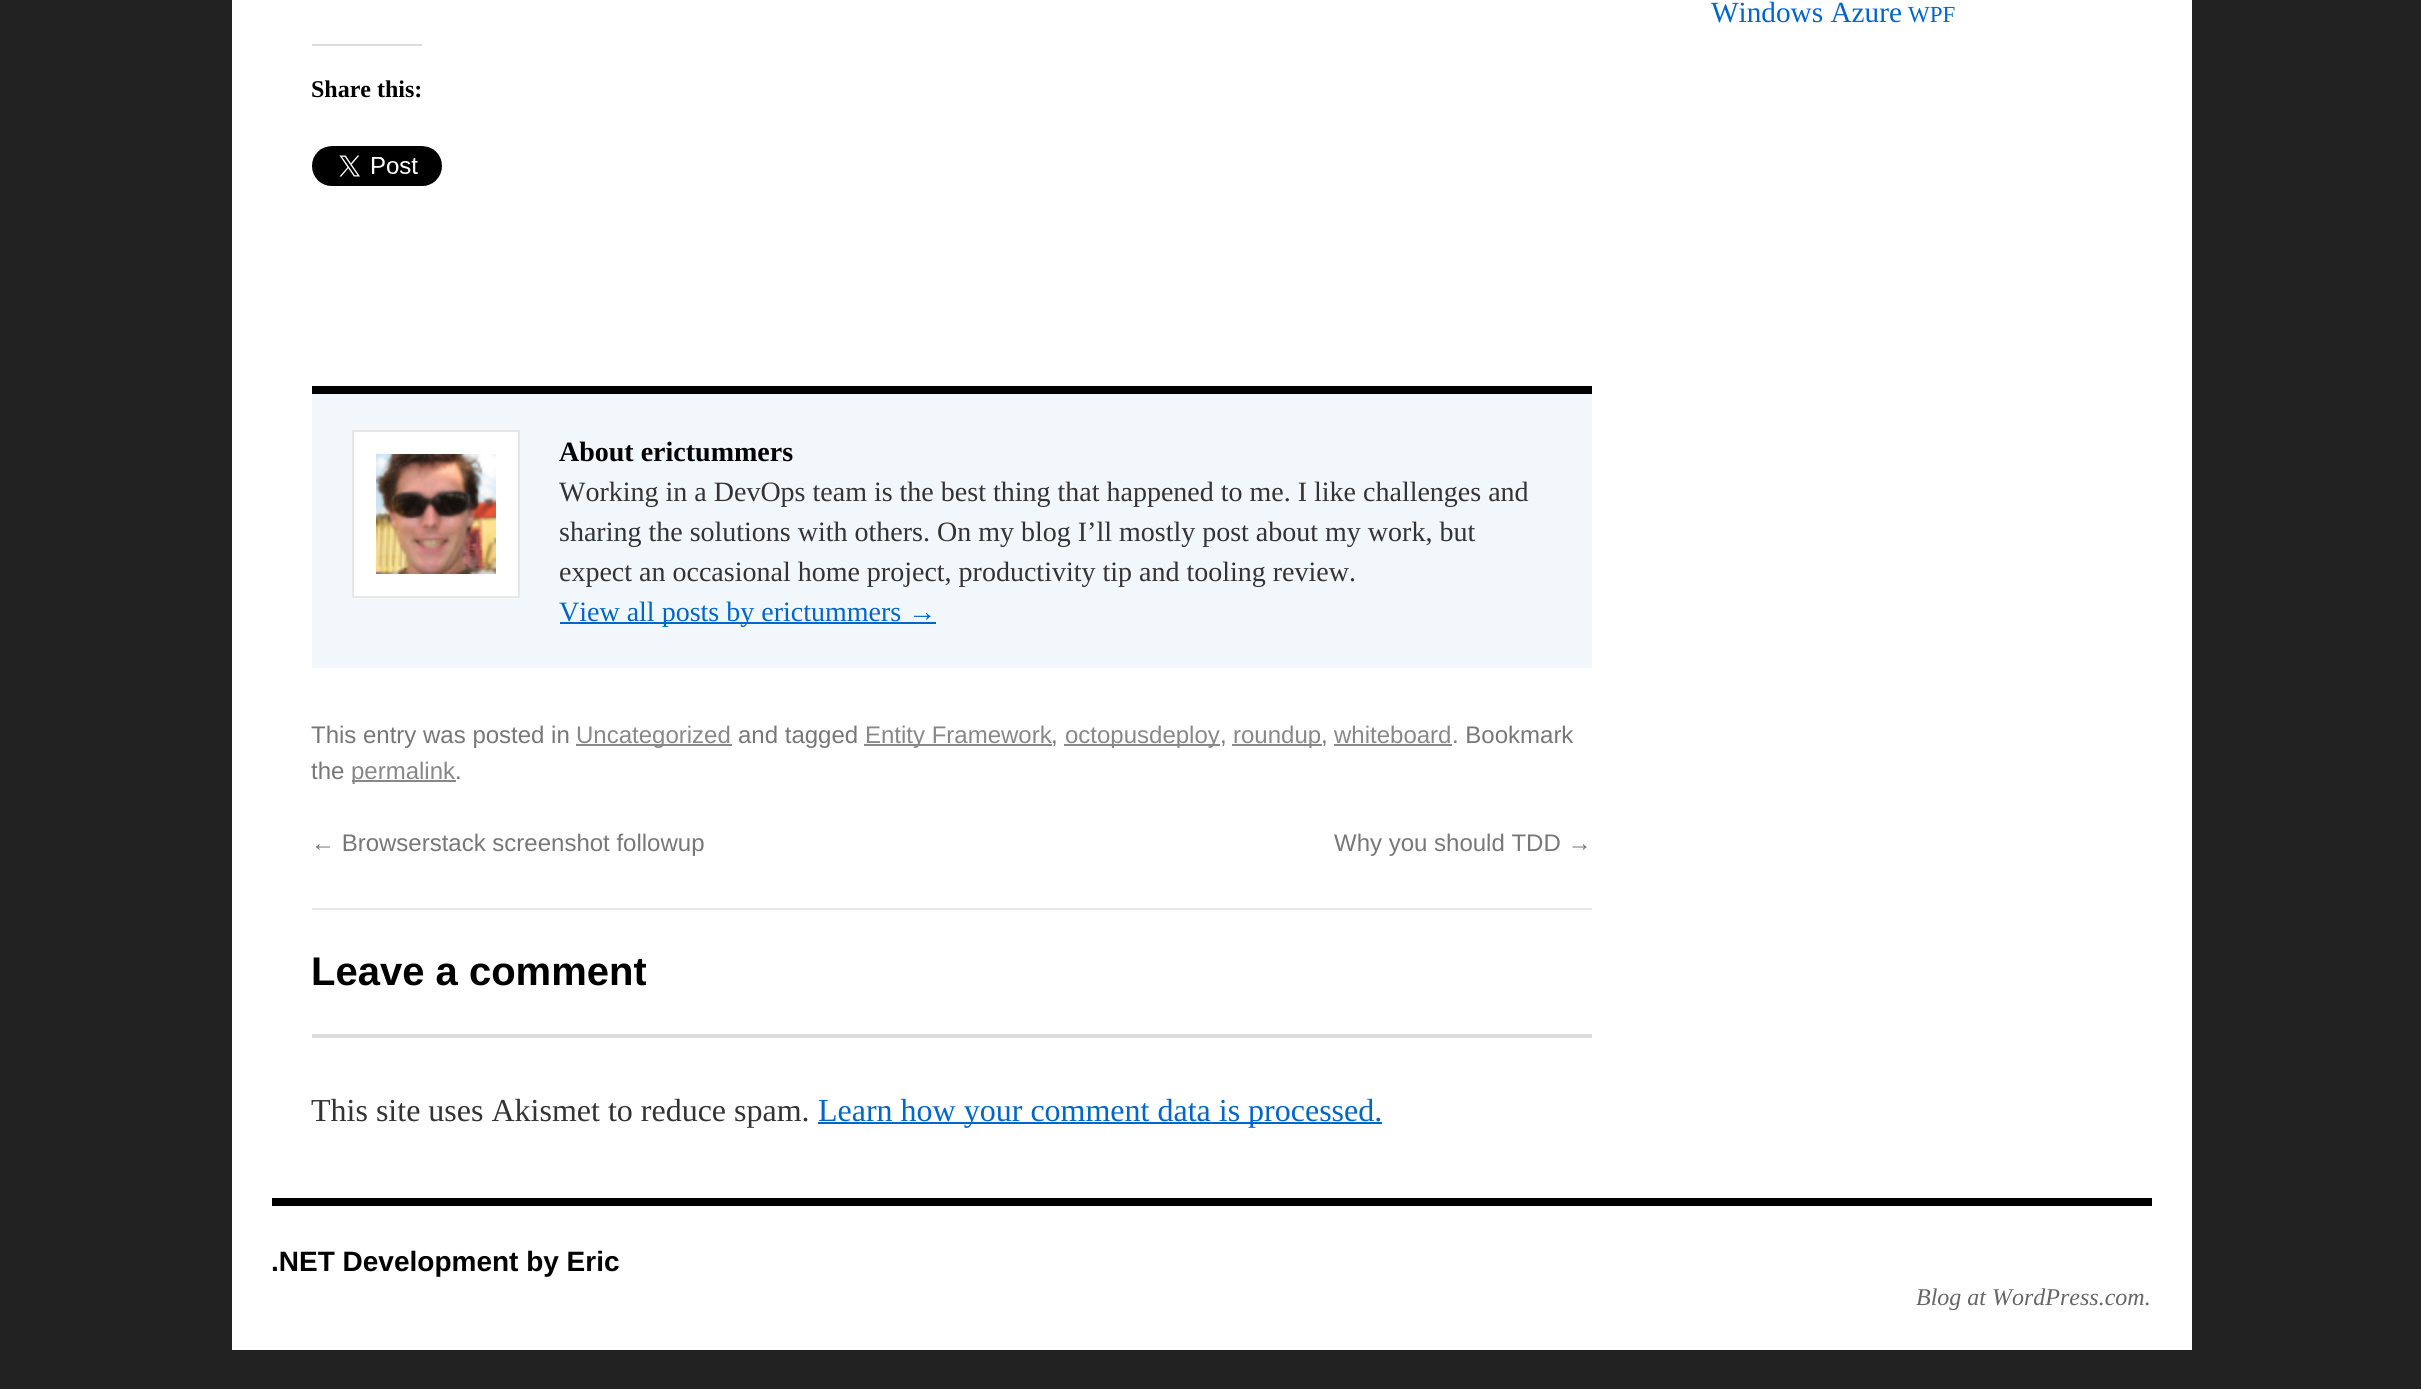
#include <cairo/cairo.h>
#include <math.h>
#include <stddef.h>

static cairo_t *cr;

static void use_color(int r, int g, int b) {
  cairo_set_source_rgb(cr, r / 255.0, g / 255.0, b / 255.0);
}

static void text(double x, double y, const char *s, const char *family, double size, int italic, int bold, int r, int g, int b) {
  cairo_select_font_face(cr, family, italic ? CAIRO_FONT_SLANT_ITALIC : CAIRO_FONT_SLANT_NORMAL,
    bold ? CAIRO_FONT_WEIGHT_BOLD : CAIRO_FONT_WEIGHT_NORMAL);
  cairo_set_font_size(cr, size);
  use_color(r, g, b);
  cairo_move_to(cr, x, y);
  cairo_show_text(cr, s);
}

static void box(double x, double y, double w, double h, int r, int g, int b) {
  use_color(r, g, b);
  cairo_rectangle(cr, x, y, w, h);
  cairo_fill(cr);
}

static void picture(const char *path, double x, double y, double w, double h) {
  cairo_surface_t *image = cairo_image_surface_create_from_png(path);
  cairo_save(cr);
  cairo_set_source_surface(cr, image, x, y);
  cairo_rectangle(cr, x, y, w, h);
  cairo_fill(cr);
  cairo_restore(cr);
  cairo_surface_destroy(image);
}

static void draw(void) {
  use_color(34, 34, 34);
  cairo_paint(cr);
  box(232, 0, 1960, 1350, 255, 255, 255);
  box(312, 44, 110, 2, 220, 220, 222);
  picture("img_01.png", 312, 146, 130, 40);
  box(312, 394, 1280, 274, 242, 247, 252);
  box(312, 386, 1280, 8, 0, 0, 0);
  use_color(255, 255, 255);
  cairo_rectangle(cr, 353, 431, 166, 166);
  cairo_fill_preserve(cr);
  use_color(231, 231, 231);
  cairo_stroke(cr);
  picture("img_02.png", 376, 454, 120, 120);
  box(560, 622, 376, 2, 0, 102, 204);
  box(576, 744, 156, 2, 136, 136, 136);
  box(864, 744, 188, 2, 136, 136, 136);
  box(1064, 744, 156, 2, 136, 136, 136);
  box(1232, 744, 90, 2, 136, 136, 136);
  box(1334, 744, 118, 2, 136, 136, 136);
  box(352, 780, 104, 2, 136, 136, 136);
  box(312, 908, 1280, 2, 231, 231, 231);
  box(312, 1034, 1280, 4, 220, 220, 222);
  box(818, 1122, 564, 2, 0, 102, 204);
  box(272, 1198, 1880, 8, 0, 0, 0);
  text(1711, 22, "Windows Azure", "Liberation Serif", 29.25, 0, 0, 0, 102, 204);
  text(1908, 22, "WPF", "Liberation Serif", 23, 0, 0, 0, 102, 204);
  text(311, 97, "Share this:", "Liberation Serif", 24, 0, 1, 0, 0, 0);
  text(559, 461, "About erictummers", "Liberation Serif", 28, 0, 1, 0, 0, 0);
  text(559, 501, "Working in a DevOps team is the best thing that happened to me. I like challenges and", "Liberation Serif", 28, 0, 0, 51, 51, 51);
  text(559, 541, "sharing the solutions with others. On my blog I’ll mostly post about my work, but", "Liberation Serif", 28, 0, 0, 51, 51, 51);
  text(559, 581, "expect an occasional home project, productivity tip and tooling review.", "Liberation Serif", 28, 0, 0, 51, 51, 51);
  text(559, 621, "View all posts by erictummers →", "Liberation Serif", 28, 0, 0, 0, 102, 204);
  text(311, 743, "This entry was posted in", "Liberation Sans", 24, 0, 0, 119, 119, 119);
  text(576, 743, "Uncategorized", "Liberation Sans", 24, 0, 0, 136, 136, 136);
  text(738, 743, "and tagged", "Liberation Sans", 24, 0, 0, 119, 119, 119);
  text(865, 743, "Entity Framework", "Liberation Sans", 24, 0, 0, 136, 136, 136);
  text(1051, 743, ",", "Liberation Sans", 24, 0, 0, 119, 119, 119);
  text(1065, 743, "octopusdeploy", "Liberation Sans", 24, 0, 0, 136, 136, 136);
  text(1220, 743, ",", "Liberation Sans", 24, 0, 0, 119, 119, 119);
  text(1233, 743, "roundup", "Liberation Sans", 24, 0, 0, 136, 136, 136);
  text(1321, 743, ",", "Liberation Sans", 24, 0, 0, 119, 119, 119);
  text(1334, 743, "whiteboard", "Liberation Sans", 24, 0, 0, 136, 136, 136);
  text(1452, 743, ". Bookmark", "Liberation Sans", 24, 0, 0, 119, 119, 119);
  text(311, 779, "the", "Liberation Sans", 24, 0, 0, 119, 119, 119);
  text(351, 779, "permalink", "Liberation Sans", 24, 0, 0, 136, 136, 136);
  text(455, 779, ".", "Liberation Sans", 24, 0, 0, 119, 119, 119);
  text(311, 851, "← Browserstack screenshot followup", "Liberation Sans", 24, 0, 0, 119, 119, 119);
  text(1334, 851, "Why you should TDD →", "Liberation Sans", 24, 0, 0, 119, 119, 119);
  text(311, 985, "Leave a comment", "Liberation Sans", 40, 0, 1, 0, 0, 0);
  text(311, 1121, "This site uses Akismet to reduce spam.", "Liberation Serif", 32, 0, 0, 51, 51, 51);
  text(818, 1121, "Learn how your comment data is processed.", "Liberation Serif", 32, 0, 0, 0, 102, 204);
  text(271, 1271, ".NET Development by Eric", "Liberation Sans", 28, 0, 1, 0, 0, 0);
  text(1916, 1305, "Blog at WordPress.com.", "Liberation Serif", 24, 1, 0, 102, 102, 102);
}

int main(void) {
  cairo_surface_t *surface = cairo_image_surface_create(CAIRO_FORMAT_RGB24, 2421, 1389);
  cr = cairo_create(surface);
  cairo_font_options_t *options = cairo_font_options_create();
  cairo_font_options_set_hint_metrics(options, CAIRO_HINT_METRICS_OFF);
  cairo_font_options_set_hint_style(options, CAIRO_HINT_STYLE_NONE);
  cairo_set_font_options(cr, options);
  cairo_set_miter_limit(cr, 4);
  draw();
  cairo_surface_write_to_png(surface, "out.png");
  cairo_font_options_destroy(options);
  cairo_destroy(cr);
  cairo_surface_destroy(surface);
  return 0;
}
